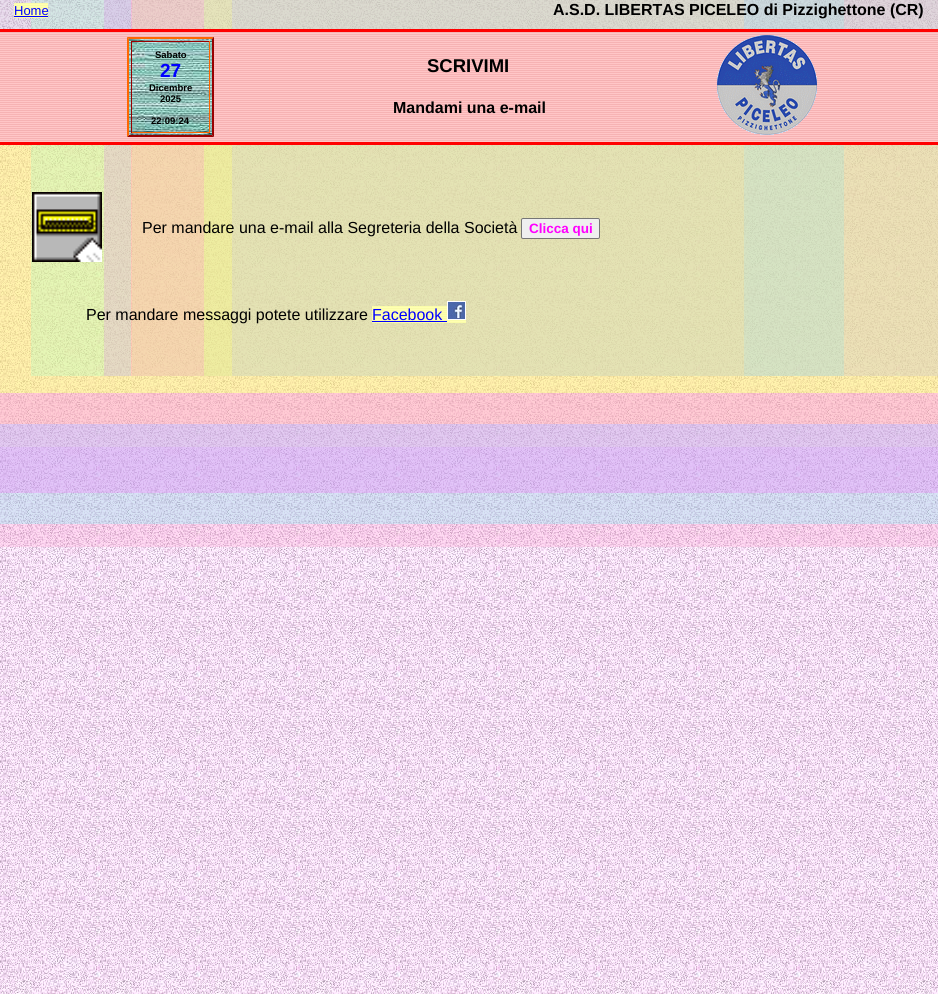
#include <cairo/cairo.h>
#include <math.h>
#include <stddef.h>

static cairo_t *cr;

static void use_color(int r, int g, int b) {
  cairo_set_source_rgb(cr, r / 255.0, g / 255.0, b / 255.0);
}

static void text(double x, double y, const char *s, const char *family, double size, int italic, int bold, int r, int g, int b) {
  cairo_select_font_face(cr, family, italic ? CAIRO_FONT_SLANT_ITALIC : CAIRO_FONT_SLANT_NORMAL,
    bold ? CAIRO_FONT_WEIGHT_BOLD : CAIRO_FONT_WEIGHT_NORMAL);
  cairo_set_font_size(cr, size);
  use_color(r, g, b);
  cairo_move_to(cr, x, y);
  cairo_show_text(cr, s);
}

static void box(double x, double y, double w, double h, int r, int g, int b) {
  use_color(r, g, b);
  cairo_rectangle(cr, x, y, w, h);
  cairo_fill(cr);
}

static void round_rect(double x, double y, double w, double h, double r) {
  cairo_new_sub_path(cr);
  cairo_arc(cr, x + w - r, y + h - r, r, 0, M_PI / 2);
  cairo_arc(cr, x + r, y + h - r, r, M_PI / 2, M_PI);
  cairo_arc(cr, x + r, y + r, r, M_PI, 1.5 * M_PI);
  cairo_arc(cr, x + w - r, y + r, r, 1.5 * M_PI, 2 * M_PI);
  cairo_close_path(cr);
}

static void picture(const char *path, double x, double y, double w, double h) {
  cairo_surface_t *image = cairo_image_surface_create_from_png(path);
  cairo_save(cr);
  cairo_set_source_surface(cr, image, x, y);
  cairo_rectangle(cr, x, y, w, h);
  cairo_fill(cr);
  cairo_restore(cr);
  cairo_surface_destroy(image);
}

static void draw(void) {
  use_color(255, 255, 255);
  cairo_paint(cr);
  picture("img_01.png", 0, 0, 938, 994);
  cairo_set_source_rgba(cr, 1, 0.8, 0.6, 0.25);
  cairo_rectangle(cr, 0, 145, 938, 302);
  cairo_fill(cr);
  cairo_set_source_rgba(cr, 0.8, 1, 0.6, 0.25);
  cairo_rectangle(cr, 0, 0, 938, 29);
  cairo_fill(cr);
  cairo_set_source_rgba(cr, 1, 0.6, 0.8, 0.25);
  cairo_rectangle(cr, 0, 447, 938, 100);
  cairo_fill(cr);
  cairo_set_source_rgba(cr, 1, 1, 0.4, 0.25);
  cairo_rectangle(cr, 0, 145, 938, 279);
  cairo_fill(cr);
  cairo_rectangle(cr, 0, 145, 938, 248);
  cairo_fill(cr);
  cairo_set_source_rgba(cr, 0.8, 0.6, 1, 0.25);
  cairo_rectangle(cr, 0, 0, 938, 29);
  cairo_fill(cr);
  cairo_set_source_rgba(cr, 0.4, 1, 1, 0.25);
  cairo_rectangle(cr, 0, 424, 938, 100);
  cairo_fill(cr);
  cairo_set_source_rgba(cr, 1, 0.4, 1, 0.25);
  cairo_rectangle(cr, 0, 393, 938, 100);
  cairo_fill(cr);
  cairo_set_source_rgba(cr, 0.8, 1, 0.6, 0.25);
  cairo_rectangle(cr, 204, 0, 540, 376);
  cairo_fill(cr);
  cairo_set_source_rgba(cr, 0.4, 1, 1, 0.25);
  cairo_rectangle(cr, 744, 0, 100, 376);
  cairo_fill(cr);
  cairo_set_source_rgba(cr, 1, 0.4, 1, 0.25);
  cairo_rectangle(cr, 104, 0, 100, 376);
  cairo_fill(cr);
  cairo_set_source_rgba(cr, 0.6, 0.8, 1, 0.25);
  cairo_rectangle(cr, 232, 0, 706, 376);
  cairo_fill(cr);
  cairo_set_source_rgba(cr, 0.8, 1, 0.6, 0.25);
  cairo_rectangle(cr, 132, 0, 100, 376);
  cairo_fill(cr);
  cairo_set_source_rgba(cr, 1, 0.8, 0.6, 0.25);
  cairo_rectangle(cr, 131, 0, 807, 376);
  cairo_fill(cr);
  cairo_set_source_rgba(cr, 0.6, 1, 0.8, 0.25);
  cairo_rectangle(cr, 31, 0, 100, 376);
  cairo_fill(cr);
  picture("img_02.png", 14, 3, 34, 15);
  box(14, 16, 34, 1, 0, 0, 255);
  picture("img_03.png", 0, 32, 938, 110);
  box(0, 29, 938, 3, 255, 0, 0);
  box(0, 142, 938, 3, 255, 0, 0);
  picture("img_04.png", 127, 37, 87, 100);
  use_color(255, 102, 0);
  cairo_new_path(cr);
  cairo_move_to(cr, 127, 37);
  cairo_line_to(cr, 214, 37);
  cairo_line_to(cr, 212, 39);
  cairo_line_to(cr, 129, 39);
  cairo_close_path(cr);
  cairo_fill(cr);
  use_color(153, 0, 0);
  cairo_new_path(cr);
  cairo_move_to(cr, 214, 37);
  cairo_line_to(cr, 214, 137);
  cairo_line_to(cr, 212, 135);
  cairo_line_to(cr, 212, 39);
  cairo_close_path(cr);
  cairo_fill(cr);
  cairo_new_path(cr);
  cairo_move_to(cr, 214, 137);
  cairo_line_to(cr, 127, 137);
  cairo_line_to(cr, 129, 135);
  cairo_line_to(cr, 212, 135);
  cairo_close_path(cr);
  cairo_fill(cr);
  use_color(255, 102, 0);
  cairo_new_path(cr);
  cairo_move_to(cr, 127, 137);
  cairo_line_to(cr, 127, 37);
  cairo_line_to(cr, 129, 39);
  cairo_line_to(cr, 129, 135);
  cairo_close_path(cr);
  cairo_fill(cr);
  box(131, 41, 79, 1, 153, 0, 0);
  box(209, 41, 1, 92, 255, 102, 0);
  box(131, 132, 79, 1, 255, 102, 0);
  box(131, 41, 1, 92, 153, 0, 0);
  picture("img_05.png", 717, 35, 100, 100);
  picture("img_06.png", 32, 192, 70, 70);
  use_color(239, 239, 239);
  round_rect(521.5, 218.5, 78, 20, 1.5);
  cairo_fill_preserve(cr);
  use_color(118, 118, 118);
  cairo_set_line_width(cr, 1);
  cairo_stroke(cr);
  picture("img_08.png", 372, 306, 94, 17);
  cairo_rectangle(cr, 447.5, 301.5, 18, 18);
  use_color(255, 255, 255);
  cairo_stroke(cr);
  picture("img_07.png", 448, 302, 17, 17);
  box(372, 321, 75, 1, 0, 0, 255);
  text(14, 15, "Home", "Liberation Sans", 13, 0, 0, 0, 0, 255);
  text(553, 15, "A.S.D. LIBERTAS PICELEO di Pizzighettone (CR)", "Liberation Sans", 16, 0, 1, 0, 0, 0);
  text(155, 58, "Sabato", "Liberation Sans", 9.5, 0, 1, 0, 0, 0);
  text(160, 77, "27", "Liberation Sans", 19, 0, 1, 0, 0, 255);
  text(149, 91, "Dicembre", "Liberation Sans", 9.5, 0, 1, 0, 0, 0);
  text(160, 102, "2025", "Liberation Sans", 9.5, 0, 1, 0, 0, 0);
  text(151, 124, "22:09:24", "Liberation Sans", 9.5, 0, 1, 0, 0, 0);
  text(427, 72, "SCRIVIMI", "Liberation Sans", 18.5, 0, 1, 0, 0, 0);
  text(393, 113, "Mandami una e-mail", "Liberation Sans", 16, 0, 1, 0, 0, 0);
  text(142, 233, "Per mandare una e-mail alla Segreteria della Società", "Liberation Sans", 16, 0, 0, 0, 0, 0);
  text(529, 233, "Clicca qui", "Liberation Sans", 13.5, 0, 1, 255, 0, 255);
  text(86, 320, "Per mandare messaggi potete utilizzare", "Liberation Sans", 16, 0, 0, 0, 0, 0);
  text(372, 320, "Facebook", "Liberation Sans", 16, 0, 0, 0, 0, 255);
}

int main(void) {
  cairo_surface_t *surface = cairo_image_surface_create(CAIRO_FORMAT_RGB24, 938, 994);
  cr = cairo_create(surface);
  cairo_font_options_t *options = cairo_font_options_create();
  cairo_font_options_set_hint_metrics(options, CAIRO_HINT_METRICS_OFF);
  cairo_font_options_set_hint_style(options, CAIRO_HINT_STYLE_NONE);
  cairo_set_font_options(cr, options);
  cairo_set_miter_limit(cr, 4);
  draw();
  cairo_surface_write_to_png(surface, "out.png");
  cairo_font_options_destroy(options);
  cairo_destroy(cr);
  cairo_surface_destroy(surface);
  return 0;
}
